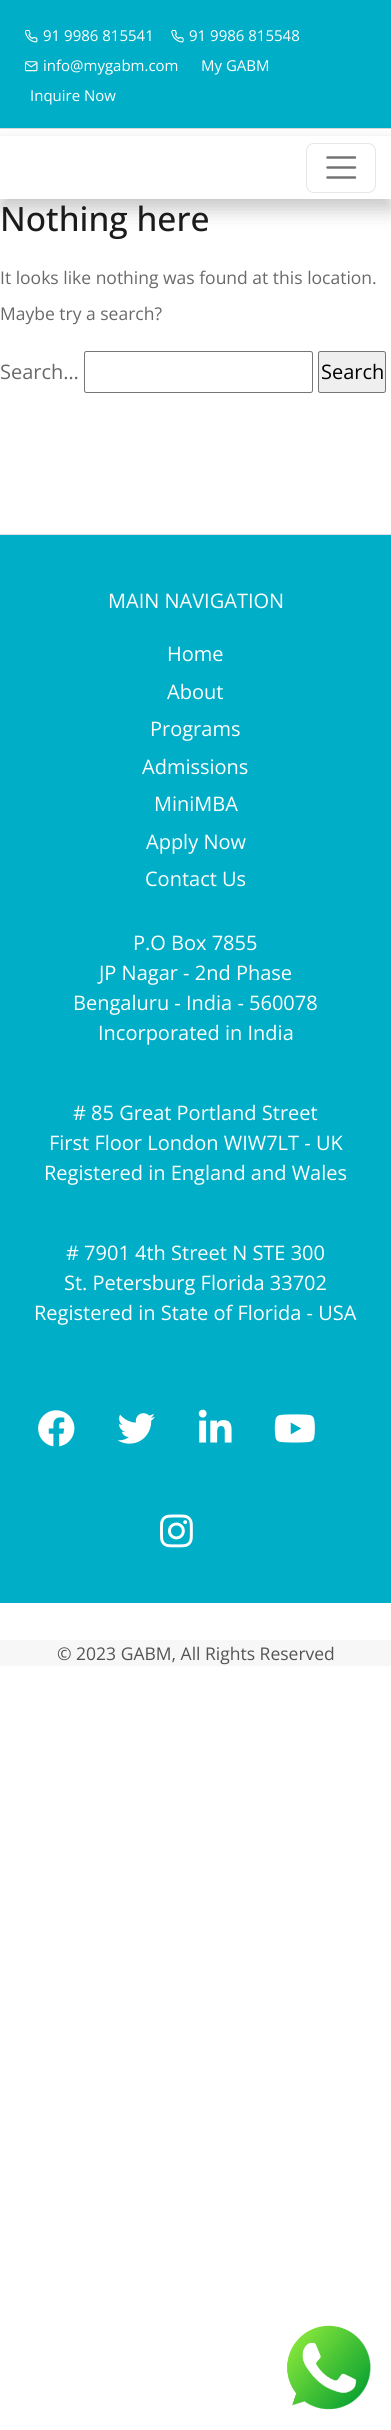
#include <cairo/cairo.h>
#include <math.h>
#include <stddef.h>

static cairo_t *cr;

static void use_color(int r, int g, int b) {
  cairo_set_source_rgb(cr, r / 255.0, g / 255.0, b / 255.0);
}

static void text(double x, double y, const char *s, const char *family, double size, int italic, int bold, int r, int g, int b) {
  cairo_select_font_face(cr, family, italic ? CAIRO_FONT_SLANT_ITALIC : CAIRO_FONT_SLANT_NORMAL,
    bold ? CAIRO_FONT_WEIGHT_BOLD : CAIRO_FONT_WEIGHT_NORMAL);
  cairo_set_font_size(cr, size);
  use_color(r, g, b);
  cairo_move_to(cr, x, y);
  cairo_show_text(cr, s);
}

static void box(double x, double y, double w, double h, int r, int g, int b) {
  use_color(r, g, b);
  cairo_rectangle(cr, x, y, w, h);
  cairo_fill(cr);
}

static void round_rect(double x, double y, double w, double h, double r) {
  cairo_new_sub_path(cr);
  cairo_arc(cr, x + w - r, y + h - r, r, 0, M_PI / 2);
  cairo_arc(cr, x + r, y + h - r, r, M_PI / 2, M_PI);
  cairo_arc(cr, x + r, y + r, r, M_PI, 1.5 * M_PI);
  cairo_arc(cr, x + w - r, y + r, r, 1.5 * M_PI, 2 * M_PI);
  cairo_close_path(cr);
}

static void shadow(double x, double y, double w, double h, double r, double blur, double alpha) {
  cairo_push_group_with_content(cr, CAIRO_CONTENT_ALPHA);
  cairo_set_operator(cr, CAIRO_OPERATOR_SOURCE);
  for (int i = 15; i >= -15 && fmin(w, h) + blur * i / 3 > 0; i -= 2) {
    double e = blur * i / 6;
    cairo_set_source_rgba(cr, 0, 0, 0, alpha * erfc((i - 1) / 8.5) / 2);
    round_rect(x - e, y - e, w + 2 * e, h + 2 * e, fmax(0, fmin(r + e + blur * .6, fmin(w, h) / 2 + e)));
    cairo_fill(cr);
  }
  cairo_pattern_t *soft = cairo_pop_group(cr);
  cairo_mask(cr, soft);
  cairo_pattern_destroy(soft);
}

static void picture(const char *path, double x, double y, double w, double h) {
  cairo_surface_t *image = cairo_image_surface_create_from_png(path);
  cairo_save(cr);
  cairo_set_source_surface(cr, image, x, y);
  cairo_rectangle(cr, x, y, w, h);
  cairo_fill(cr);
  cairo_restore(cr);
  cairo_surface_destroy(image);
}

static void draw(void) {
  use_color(255, 255, 255);
  cairo_paint(cr);
  box(0, 0, 391, 128, 0, 174, 199);
  box(0, 128, 391, 1, 217, 217, 217);
  picture("img_01.png", 25, 30, 13, 13);
  picture("img_02.png", 171, 30, 13, 13);
  picture("img_03.png", 25, 61, 13, 11);
  use_color(0, 0, 0);
  shadow(0, 146, 391, 63, 0, 10, 0.23);
  box(0, 136, 391, 63, 255, 255, 255);
  round_rect(306.5, 143.5, 69, 49, 7.5);
  use_color(230, 230, 230);
  cairo_set_line_width(cr, 1);
  cairo_stroke(cr);
  cairo_new_path(cr);
  cairo_move_to(cr, 327.5, 157.5);
  cairo_line_to(cr, 355, 157.5);
  cairo_move_to(cr, 327.5, 167.5);
  cairo_line_to(cr, 355, 167.5);
  cairo_move_to(cr, 327.5, 177.5);
  cairo_line_to(cr, 355, 177.5);
  use_color(115, 115, 115);
  cairo_set_line_width(cr, 2.5);
  cairo_set_line_cap(cr, CAIRO_LINE_CAP_ROUND);
  cairo_stroke(cr);
  round_rect(84.5, 351.5, 228, 41, 2);
  use_color(118, 118, 118);
  cairo_set_line_width(cr, 1);
  cairo_set_line_cap(cr, CAIRO_LINE_CAP_BUTT);
  cairo_stroke(cr);
  use_color(239, 239, 239);
  round_rect(318.5, 351.5, 67, 41, 2);
  cairo_fill_preserve(cr);
  use_color(118, 118, 118);
  cairo_stroke(cr);
  box(0, 535, 391, 1068, 0, 174, 199);
  box(0, 534, 391, 1, 222, 226, 230);
  picture("img_04.png", 38, 1410, 37, 37);
  picture("img_05.png", 117, 1413, 38, 31);
  picture("img_06.png", 198, 1409, 34, 34);
  picture("img_07.png", 274, 1414, 41, 29);
  picture("img_08.png", 160, 1514, 33, 34);
  picture("img_09.png", 287, 2325, 84, 85);
  box(0, 1640, 391, 26, 247, 247, 247);
  text(43, 41, "91 9986 815541", "Open Sans", 15, 0, 0, 255, 255, 255);
  text(189, 41, "91 9986 815548", "Open Sans", 15, 0, 0, 255, 255, 255);
  text(43, 71, "info@mygabm.com", "Open Sans", 15, 0, 0, 255, 255, 255);
  text(201, 71, "My GABM", "Open Sans", 15, 0, 0, 255, 255, 255);
  text(30, 101, "Inquire Now", "Open Sans", 15, 0, 0, 255, 255, 255);
  text(0, 231, "Nothing here", "Open Sans Medium", 33.5, 0, 0, 27, 27, 27);
  text(0, 284, "It looks like nothing was found at this location.", "Open Sans", 17.5, 0, 0, 105, 105, 105);
  text(0, 320, "Maybe try a search?", "Open Sans", 17.5, 0, 0, 105, 105, 105);
  text(0, 379, "Search…", "Open Sans", 20, 0, 0, 105, 105, 105);
  text(321, 379, "Search", "Open Sans", 20, 0, 0, 0, 0, 0);
  text(108, 608, "MAIN NAVIGATION", "Open Sans", 20, 0, 0, 255, 255, 255);
  text(167, 661, "Home", "Open Sans", 20, 0, 0, 255, 255, 255);
  text(167, 699, "About", "Open Sans", 20, 0, 0, 255, 255, 255);
  text(150, 736, "Programs", "Open Sans", 20, 0, 0, 255, 255, 255);
  text(142, 774, "Admissions", "Open Sans", 20, 0, 0, 255, 255, 255);
  text(154, 811, "MiniMBA", "Open Sans", 20, 0, 0, 255, 255, 255);
  text(146, 849, "Apply Now", "Open Sans", 20, 0, 0, 255, 255, 255);
  text(145, 886, "Contact Us", "Open Sans", 20, 0, 0, 255, 255, 255);
  text(133, 950, "P.O Box 7855", "Open Sans", 20, 0, 0, 255, 255, 255);
  text(99, 980, "JP Nagar - 2nd Phase", "Open Sans", 20, 0, 0, 255, 255, 255);
  text(73, 1010, "Bengaluru - India - 560078", "Open Sans", 20, 0, 0, 255, 255, 255);
  text(98, 1040, "Incorporated in India", "Open Sans", 20, 0, 0, 255, 255, 255);
  text(73, 1120, "# 85 Great Portland Street", "Open Sans", 20, 0, 0, 255, 255, 255);
  text(49, 1150, "First Floor London WIW7LT - UK", "Open Sans", 20, 0, 0, 255, 255, 255);
  text(44, 1180, "Registered in England and Wales", "Open Sans", 20, 0, 0, 255, 255, 255);
  text(66, 1260, "# 7901 4th Street N STE 300", "Open Sans", 20, 0, 0, 255, 255, 255);
  text(64, 1290, "St. Petersburg Florida 33702", "Open Sans", 20, 0, 0, 255, 255, 255);
  text(34, 1320, "Registered in State of Florida - USA", "Open Sans", 20, 0, 0, 255, 255, 255);
  text(57, 1660, "© 2023 GABM, All Rights Reserved", "Open Sans", 17.5, 0, 0, 84, 84, 84);
}

int main(void) {
  cairo_surface_t *surface = cairo_image_surface_create(CAIRO_FORMAT_RGB24, 391, 2430);
  cr = cairo_create(surface);
  cairo_font_options_t *options = cairo_font_options_create();
  cairo_font_options_set_hint_metrics(options, CAIRO_HINT_METRICS_OFF);
  cairo_font_options_set_hint_style(options, CAIRO_HINT_STYLE_NONE);
  cairo_set_font_options(cr, options);
  cairo_set_miter_limit(cr, 4);
  draw();
  cairo_surface_write_to_png(surface, "out.png");
  cairo_font_options_destroy(options);
  cairo_destroy(cr);
  cairo_surface_destroy(surface);
  return 0;
}
